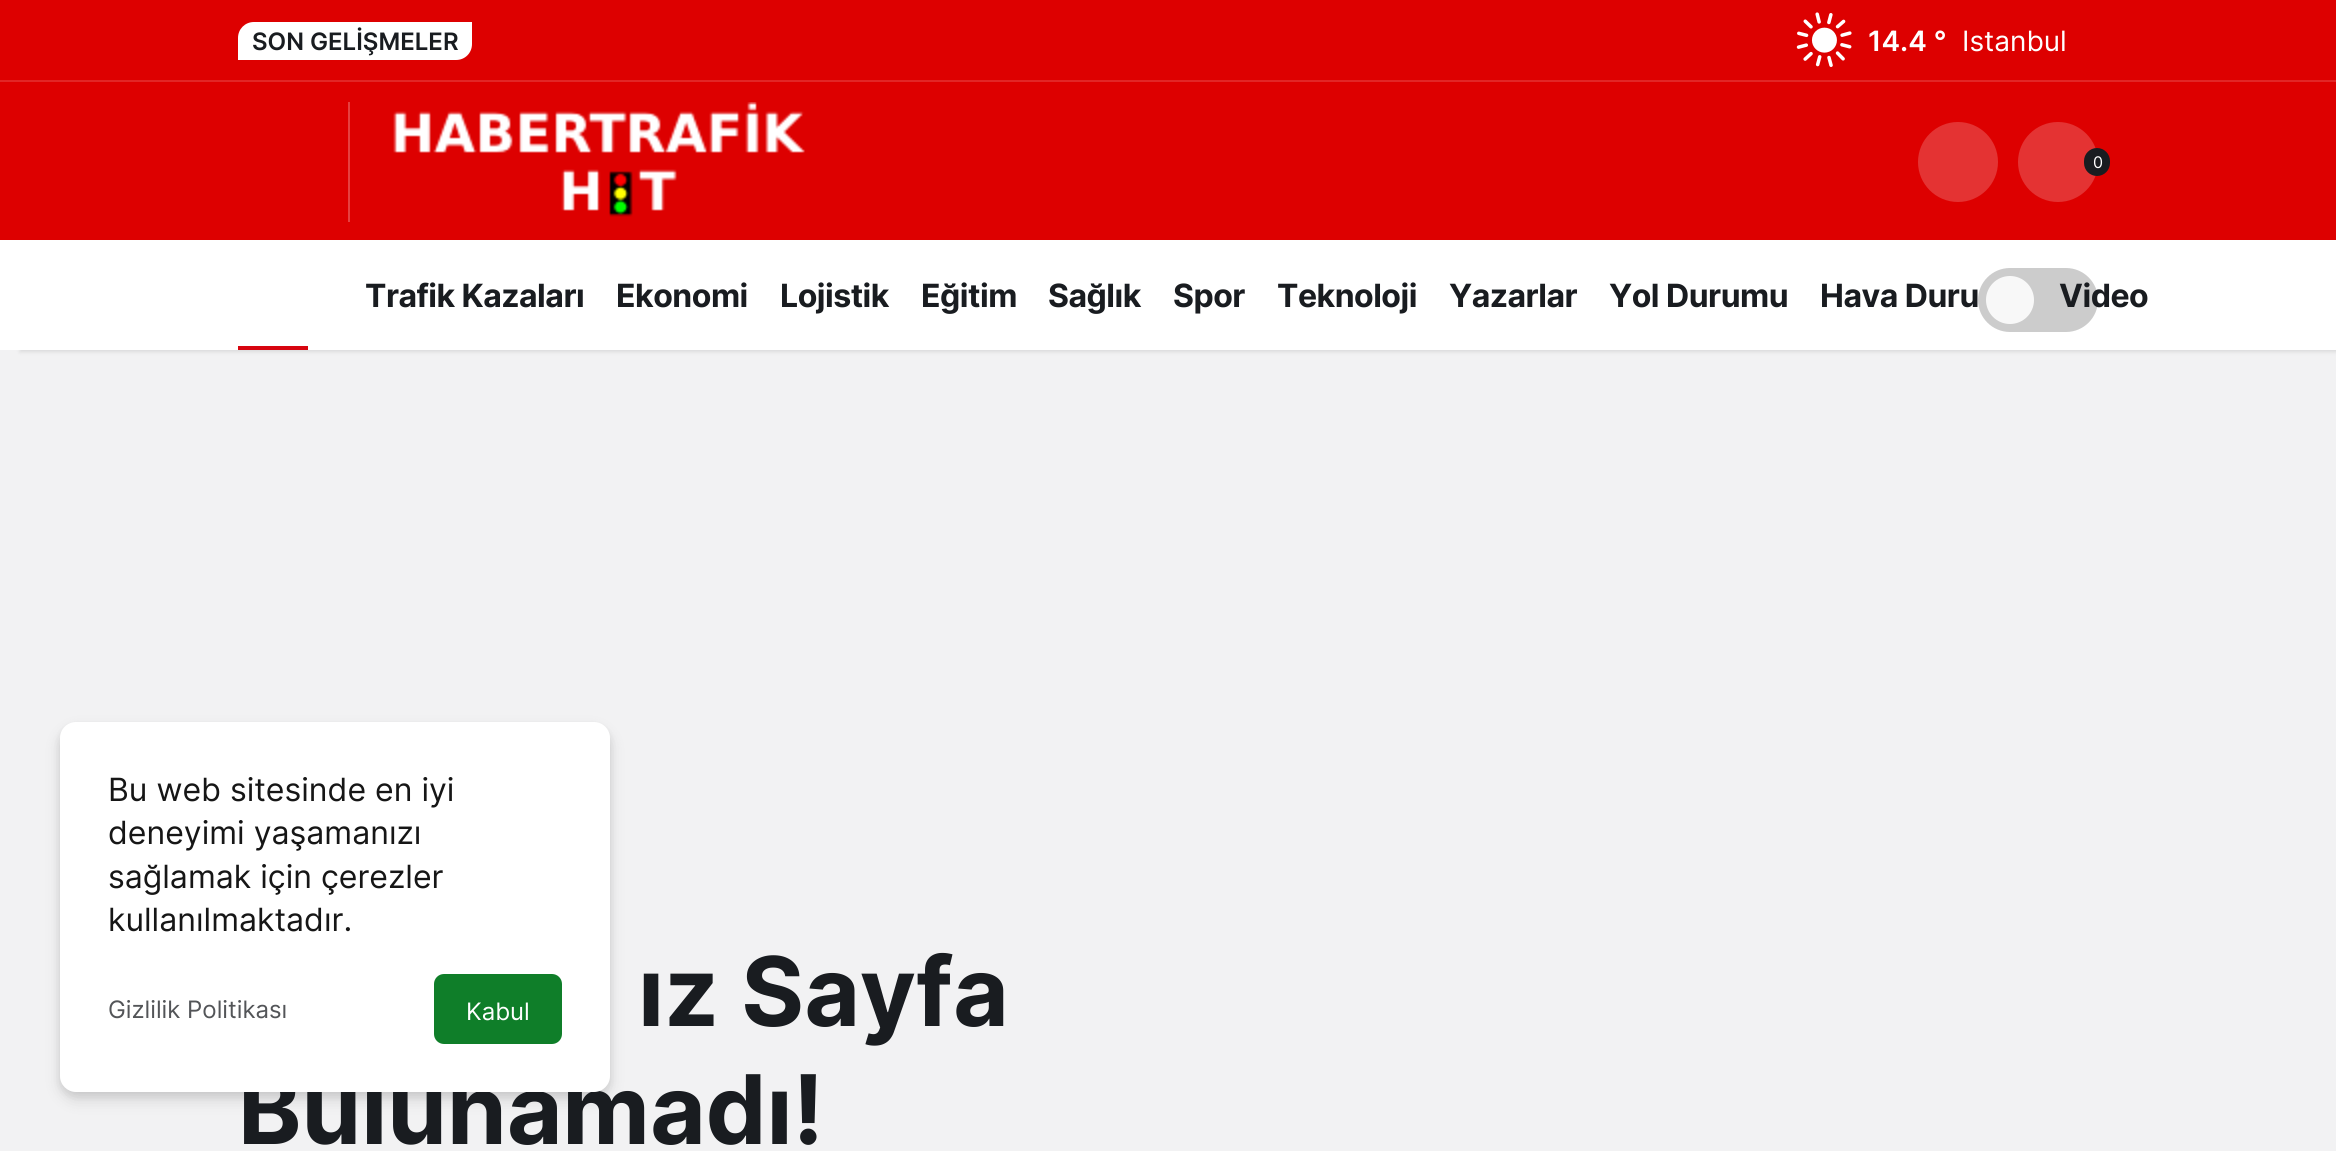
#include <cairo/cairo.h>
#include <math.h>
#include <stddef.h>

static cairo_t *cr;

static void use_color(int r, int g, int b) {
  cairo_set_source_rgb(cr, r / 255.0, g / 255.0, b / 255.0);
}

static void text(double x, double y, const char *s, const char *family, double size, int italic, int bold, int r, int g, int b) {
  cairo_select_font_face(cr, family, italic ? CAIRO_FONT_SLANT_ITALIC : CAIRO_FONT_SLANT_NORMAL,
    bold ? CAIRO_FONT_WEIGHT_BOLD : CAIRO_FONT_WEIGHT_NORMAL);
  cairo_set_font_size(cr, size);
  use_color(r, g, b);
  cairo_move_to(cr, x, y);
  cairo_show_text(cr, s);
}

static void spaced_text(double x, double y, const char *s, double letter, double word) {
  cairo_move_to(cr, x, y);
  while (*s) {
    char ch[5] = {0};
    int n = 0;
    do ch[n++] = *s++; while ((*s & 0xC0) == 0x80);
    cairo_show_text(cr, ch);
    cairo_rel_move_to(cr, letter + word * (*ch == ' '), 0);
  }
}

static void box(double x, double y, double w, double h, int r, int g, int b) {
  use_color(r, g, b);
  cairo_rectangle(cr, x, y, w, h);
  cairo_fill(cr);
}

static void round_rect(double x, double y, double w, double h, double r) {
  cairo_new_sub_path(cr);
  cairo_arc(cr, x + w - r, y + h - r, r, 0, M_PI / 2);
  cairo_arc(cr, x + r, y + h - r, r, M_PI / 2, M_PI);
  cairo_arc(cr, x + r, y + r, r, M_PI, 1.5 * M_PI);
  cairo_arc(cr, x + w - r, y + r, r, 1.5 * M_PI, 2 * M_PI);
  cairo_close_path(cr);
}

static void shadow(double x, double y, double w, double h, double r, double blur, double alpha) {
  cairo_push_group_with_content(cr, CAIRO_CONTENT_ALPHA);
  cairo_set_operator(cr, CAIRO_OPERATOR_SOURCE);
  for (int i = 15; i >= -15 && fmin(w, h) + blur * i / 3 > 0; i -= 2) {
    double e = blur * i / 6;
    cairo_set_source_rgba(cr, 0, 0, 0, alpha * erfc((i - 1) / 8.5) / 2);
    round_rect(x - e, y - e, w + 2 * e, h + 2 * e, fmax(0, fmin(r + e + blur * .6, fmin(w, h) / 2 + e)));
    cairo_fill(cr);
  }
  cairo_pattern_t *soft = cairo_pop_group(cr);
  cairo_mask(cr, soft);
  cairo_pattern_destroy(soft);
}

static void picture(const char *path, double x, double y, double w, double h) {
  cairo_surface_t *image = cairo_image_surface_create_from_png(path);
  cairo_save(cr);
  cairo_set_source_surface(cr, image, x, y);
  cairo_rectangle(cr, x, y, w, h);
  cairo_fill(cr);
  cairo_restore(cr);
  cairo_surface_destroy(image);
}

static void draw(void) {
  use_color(242, 242, 243);
  cairo_paint(cr);
  use_color(0, 0, 0);
  shadow(20, 242, 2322, 110, 0, 2, 0.1);
  box(0, 0, 2336, 240, 221, 0, 0);
  use_color(255, 255, 255);
  cairo_new_path(cr);
  cairo_move_to(cr, 254, 22);
  cairo_line_to(cr, 472, 22);
  cairo_line_to(cr, 472, 44);
  cairo_curve_to(cr, 472, 53, 465, 60, 456, 60);
  cairo_line_to(cr, 238, 60);
  cairo_line_to(cr, 238, 38);
  cairo_curve_to(cr, 238, 29, 245, 22, 254, 22);
  cairo_close_path(cr);
  cairo_fill(cr);
  picture("img_01.png", 1796, 12, 56, 55);
  box(0, 80, 2336, 2, 226, 38, 38);
  box(348, 102, 2, 120, 230, 64, 64);
  picture("img_02.png", 393, 102, 412, 115);
  use_color(228, 51, 51);
  cairo_arc(cr, 1958, 162, 40, 0, 2 * M_PI);
  cairo_fill(cr);
  cairo_arc(cr, 2058, 162, 40, 0, 2 * M_PI);
  cairo_fill(cr);
  use_color(25, 28, 32);
  round_rect(2084, 148, 26, 28, 13);
  cairo_fill(cr);
  box(0, 240, 2336, 110, 255, 255, 255);
  use_color(204, 204, 204);
  round_rect(1978, 268, 120, 64, 32);
  cairo_fill(cr);
  cairo_set_source_rgba(cr, 1, 1, 1, 0.87);
  cairo_arc(cr, 2010, 300, 24, 0, 2 * M_PI);
  cairo_fill(cr);
  box(238, 346, 70, 4, 215, 5, 15);
  use_color(0, 0, 0);
  shadow(60, 726, 550, 370, 16, 4, 0.08);
  shadow(60, 730, 550, 370, 16, 8, 0.12);
  text(252, 50, "SON GELİŞMELER", "Inter SemiBold", 24, 0, 0, 25, 28, 32);
  text(1868, 51, "14.4 °", "Inter SemiBold", 28, 0, 0, 255, 255, 255);
  text(1962, 51, "Istanbul", "Inter", 28, 0, 0, 255, 255, 255);
  text(2093, 168, "0", "Inter", 16, 0, 0, 255, 255, 255);
  cairo_select_font_face(cr, "Inter", CAIRO_FONT_SLANT_NORMAL, CAIRO_FONT_WEIGHT_BOLD);
  cairo_set_font_size(cr, 32);
  use_color(25, 28, 32);
  spaced_text(365, 307, "Trafik Kazaları", -0.5, 0);
  spaced_text(616, 307, "Ekonomi", -0.5, 0);
  spaced_text(780, 307, "Lojistik", -0.5, 0);
  spaced_text(921, 307, "Eğitim", -0.5, 0);
  spaced_text(1048, 307, "Sağlık", -0.5, 0);
  spaced_text(1173, 307, "Spor", -0.5, 0);
  spaced_text(1277, 307, "Teknoloji", -0.5, 0);
  spaced_text(1449, 307, "Yazarlar", -0.5, 0);
  spaced_text(1609, 307, "Yol Durumu", -0.5, 0);
  spaced_text(1820, 307, "Hava Duru", -0.5, 0);
  spaced_text(2059, 307, "Video", -0.5, 0);
  text(638, 1026, "ız Sayfa", "Inter", 96, 0, 1, 25, 28, 32);
  text(238, 1144, "Bulunamadı!", "Inter", 96, 0, 1, 25, 28, 32);
  use_color(255, 255, 255);
  round_rect(60, 722, 550, 370, 16);
  cairo_fill(cr);
  text(108, 1018, "Gizlilik Politikası", "Inter", 24, 0, 0, 83, 85, 88);
  use_color(15, 126, 41);
  round_rect(434, 974, 128, 70, 10);
  cairo_fill(cr);
  text(466, 1020, "Kabul", "Inter", 24, 0, 0, 255, 255, 255);
  text(108, 931, "kullanılmaktadır.", "Inter", 32, 0, 0, 22, 22, 22);
  text(108, 888, "sağlamak için çerezler", "Inter", 32, 0, 0, 22, 22, 22);
  text(108, 844, "deneyimi yaşamanızı", "Inter", 32, 0, 0, 22, 22, 22);
  text(108, 801, "Bu web sitesinde en iyi", "Inter", 32, 0, 0, 22, 22, 22);
}

int main(void) {
  cairo_surface_t *surface = cairo_image_surface_create(CAIRO_FORMAT_RGB24, 2336, 1151);
  cr = cairo_create(surface);
  cairo_font_options_t *options = cairo_font_options_create();
  cairo_font_options_set_hint_metrics(options, CAIRO_HINT_METRICS_OFF);
  cairo_font_options_set_hint_style(options, CAIRO_HINT_STYLE_NONE);
  cairo_set_font_options(cr, options);
  cairo_set_miter_limit(cr, 4);
  draw();
  cairo_surface_write_to_png(surface, "out.png");
  cairo_font_options_destroy(options);
  cairo_destroy(cr);
  cairo_surface_destroy(surface);
  return 0;
}
